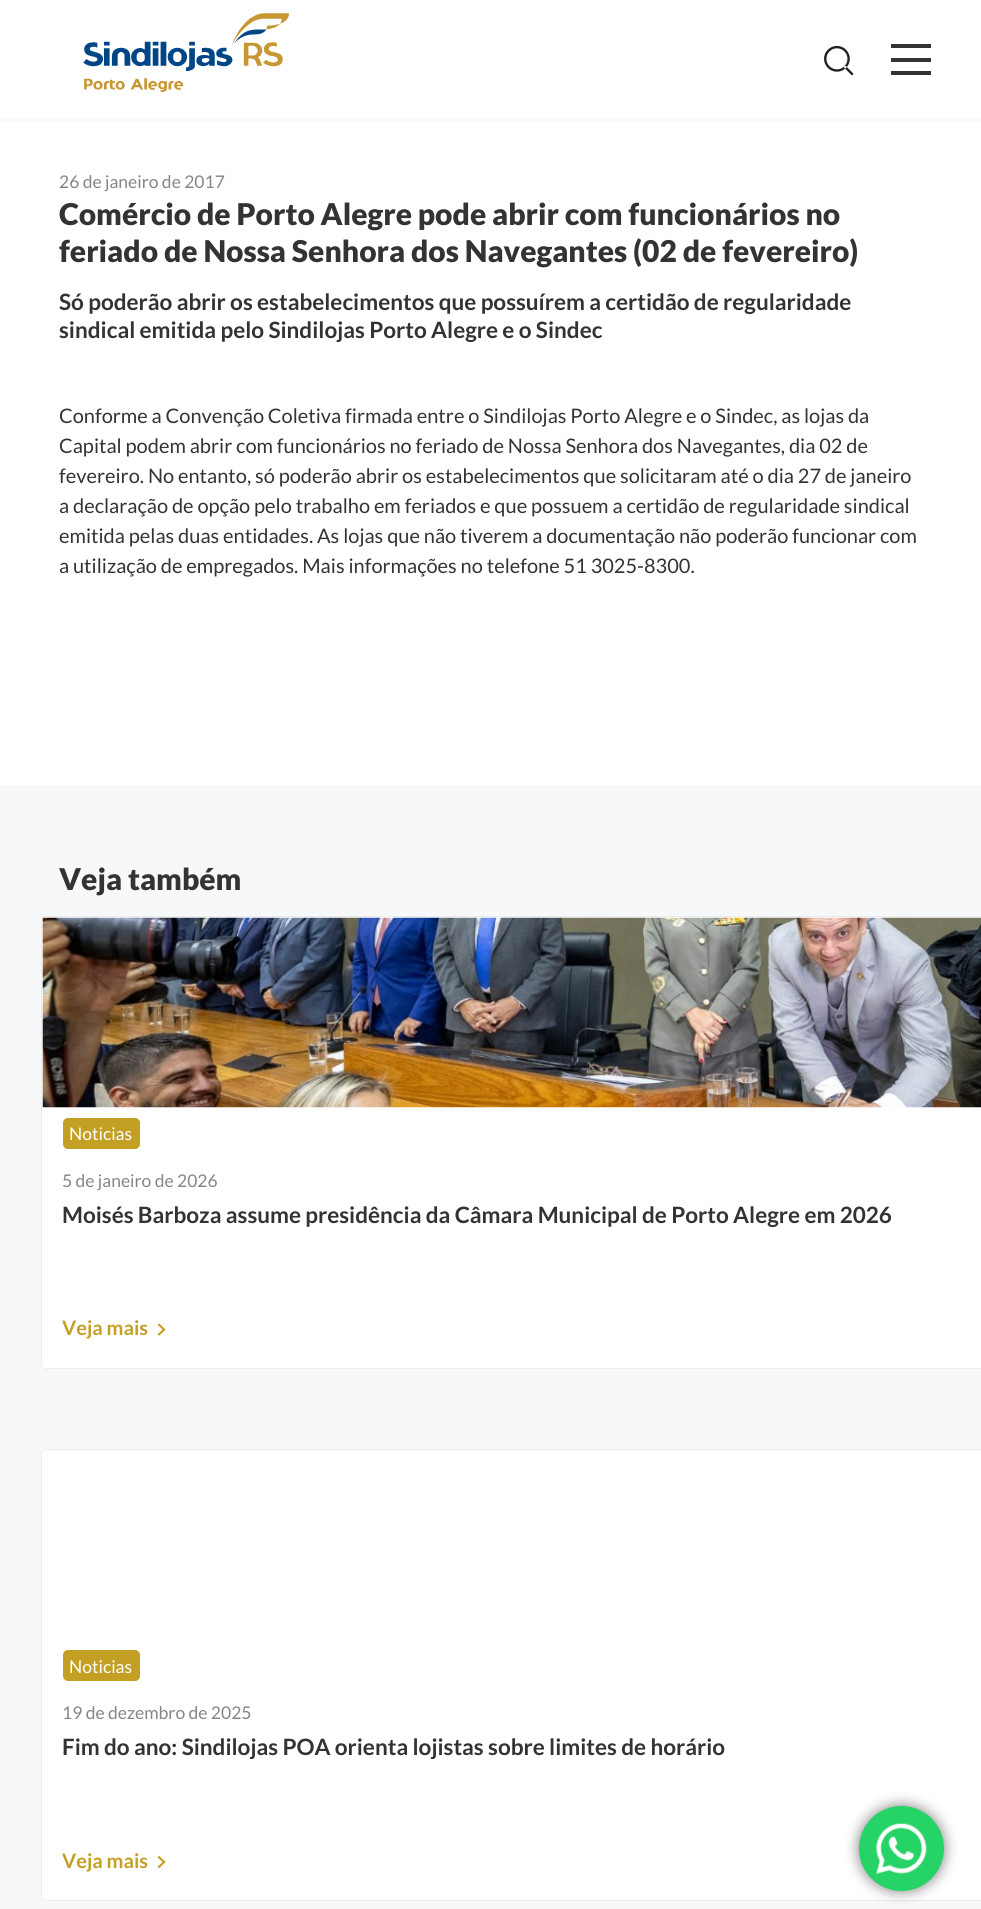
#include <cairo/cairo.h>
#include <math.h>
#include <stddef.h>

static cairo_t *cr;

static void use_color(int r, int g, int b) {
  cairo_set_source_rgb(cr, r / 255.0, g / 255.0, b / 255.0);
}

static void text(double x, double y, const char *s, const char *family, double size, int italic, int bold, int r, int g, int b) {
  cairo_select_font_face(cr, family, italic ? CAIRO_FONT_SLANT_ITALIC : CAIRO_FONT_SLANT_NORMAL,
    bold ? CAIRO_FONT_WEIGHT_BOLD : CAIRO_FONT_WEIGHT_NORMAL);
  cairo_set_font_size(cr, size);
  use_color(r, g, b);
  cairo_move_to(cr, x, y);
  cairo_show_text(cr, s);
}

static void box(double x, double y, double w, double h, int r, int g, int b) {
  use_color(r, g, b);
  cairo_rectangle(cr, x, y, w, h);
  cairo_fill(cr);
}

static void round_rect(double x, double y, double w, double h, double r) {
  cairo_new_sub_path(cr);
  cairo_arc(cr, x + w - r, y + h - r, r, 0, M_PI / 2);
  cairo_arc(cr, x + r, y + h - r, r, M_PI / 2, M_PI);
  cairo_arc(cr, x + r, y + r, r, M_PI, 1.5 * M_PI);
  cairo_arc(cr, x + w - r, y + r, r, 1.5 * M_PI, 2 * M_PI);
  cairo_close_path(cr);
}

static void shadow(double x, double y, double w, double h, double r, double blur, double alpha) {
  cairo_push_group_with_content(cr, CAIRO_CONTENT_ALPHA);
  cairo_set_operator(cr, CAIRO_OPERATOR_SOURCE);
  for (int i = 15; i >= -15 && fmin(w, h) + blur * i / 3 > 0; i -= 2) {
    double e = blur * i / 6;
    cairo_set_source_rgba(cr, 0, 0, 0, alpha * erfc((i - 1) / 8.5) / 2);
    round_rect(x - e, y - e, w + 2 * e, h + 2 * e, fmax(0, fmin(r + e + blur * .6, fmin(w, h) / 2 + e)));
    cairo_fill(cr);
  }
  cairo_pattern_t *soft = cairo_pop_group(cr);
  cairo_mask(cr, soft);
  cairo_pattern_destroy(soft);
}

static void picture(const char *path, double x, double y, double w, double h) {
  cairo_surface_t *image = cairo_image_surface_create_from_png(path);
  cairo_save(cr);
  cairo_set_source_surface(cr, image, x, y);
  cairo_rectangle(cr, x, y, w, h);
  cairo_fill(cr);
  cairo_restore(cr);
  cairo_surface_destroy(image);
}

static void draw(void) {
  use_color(255, 255, 255);
  cairo_paint(cr);
  box(0, 118, 981, 3, 246, 248, 249);
  picture("img_01.png", 83, 13, 206, 79);
  picture("img_02.png", 824, 45, 30, 31);
  box(891, 44, 40, 4, 51, 51, 51);
  box(891, 58, 40, 4, 51, 51, 51);
  box(891, 71, 40, 4, 51, 51, 51);
  box(0, 785, 981, 1124, 246, 248, 249);
  use_color(255, 255, 255);
  cairo_new_path(cr);
  cairo_move_to(cr, 46, 916);
  cairo_line_to(cr, 981, 916);
  cairo_line_to(cr, 981, 1369);
  cairo_line_to(cr, 46, 1369);
  cairo_curve_to(cr, 43, 1369, 41, 1367, 41, 1364);
  cairo_line_to(cr, 41, 921);
  cairo_curve_to(cr, 41, 918, 43, 916, 46, 916);
  cairo_close_path(cr);
  cairo_fill(cr);
  round_rect(41.5, 916.5, 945, 452, 4.5);
  use_color(236, 236, 236);
  cairo_set_line_width(cr, 1);
  cairo_stroke(cr);
  picture("img_03.png", 42, 917, 939, 191);
  use_color(195, 159, 36);
  round_rect(63, 1118, 77, 31, 5);
  cairo_fill(cr);
  picture("img_04.png", 157, 1323, 9, 13);
  use_color(255, 255, 255);
  cairo_new_path(cr);
  cairo_move_to(cr, 46, 1449);
  cairo_line_to(cr, 981, 1449);
  cairo_line_to(cr, 981, 1901);
  cairo_line_to(cr, 46, 1901);
  cairo_curve_to(cr, 43, 1901, 41, 1899, 41, 1896);
  cairo_line_to(cr, 41, 1454);
  cairo_curve_to(cr, 41, 1451, 43, 1449, 46, 1449);
  cairo_close_path(cr);
  cairo_fill(cr);
  round_rect(41.5, 1449.5, 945, 451, 4.5);
  use_color(236, 236, 236);
  cairo_stroke(cr);
  use_color(195, 159, 36);
  round_rect(63, 1650, 77, 31, 5);
  cairo_fill(cr);
  picture("img_05.png", 157, 1855, 9, 14);
  use_color(0, 0, 0);
  shadow(859, 1806, 85, 85, 42.5, 7, 0.5);
  use_color(37, 211, 102);
  cairo_arc(cr, 901.5, 1848.5, 42.5, 0, 2 * M_PI);
  cairo_fill(cr);
  picture("img_06.png", 876, 1823, 51, 51);
  text(59, 188, "26 de janeiro de 2017", "Lato", 17.5, 0, 0, 133, 133, 133);
  text(59, 225, "Comércio de Porto Alegre pode abrir com funcionários no", "Lato Black", 30, 0, 0, 51, 51, 51);
  text(59, 262, "feriado de Nossa Senhora dos Navegantes (02 de fevereiro)", "Lato Black", 30, 0, 0, 51, 51, 51);
  text(59, 310, "Só poderão abrir os estabelecimentos que possuírem a certidão de regularidade", "Lato", 22.5, 0, 1, 51, 51, 51);
  text(59, 338, "sindical emitida pelo Sindilojas Porto Alegre e o Sindec", "Lato", 22.5, 0, 1, 51, 51, 51);
  text(59, 423, "Conforme a Convenção Coletiva firmada entre o Sindilojas Porto Alegre e o Sindec, as lojas da", "Lato", 20, 0, 0, 51, 51, 51);
  text(59, 453, "Capital podem abrir com funcionários no feriado de Nossa Senhora dos Navegantes, dia 02 de", "Lato", 20, 0, 0, 51, 51, 51);
  text(59, 483, "fevereiro. No entanto, só poderão abrir os estabelecimentos que solicitaram até o dia 27 de janeiro", "Lato", 20, 0, 0, 51, 51, 51);
  text(59, 513, "a declaração de opção pelo trabalho em feriados e que possuem a certidão de regularidade sindical", "Lato", 20, 0, 0, 51, 51, 51);
  text(59, 543, "emitida pelas duas entidades. As lojas que não tiverem a documentação não poderão funcionar com", "Lato", 20, 0, 0, 51, 51, 51);
  text(59, 573, "a utilização de empregados. Mais informações no telefone 51 3025-8300.", "Lato", 20, 0, 0, 51, 51, 51);
  text(59, 890, "Veja também", "Lato Black", 30, 0, 0, 51, 51, 51);
  text(69, 1140, "Noticias", "Lato", 17.5, 0, 0, 255, 255, 255);
  text(62, 1187, "5 de janeiro de 2026", "Lato", 17.5, 0, 0, 133, 133, 133);
  text(62, 1223, "Moisés Barboza assume presidência da Câmara Municipal de Porto Alegre em 2026", "Lato", 22.5, 0, 1, 51, 51, 51);
  text(62, 1335, "Veja mais", "Lato", 20, 0, 1, 195, 159, 36);
  text(69, 1673, "Noticias", "Lato", 17.5, 0, 0, 255, 255, 255);
  text(62, 1719, "19 de dezembro de 2025", "Lato", 17.5, 0, 0, 133, 133, 133);
  text(62, 1755, "Fim do ano: Sindilojas POA orienta lojistas sobre limites de horário", "Lato", 22.5, 0, 1, 51, 51, 51);
  text(62, 1868, "Veja mais", "Lato", 20, 0, 1, 195, 159, 36);
}

int main(void) {
  cairo_surface_t *surface = cairo_image_surface_create(CAIRO_FORMAT_RGB24, 981, 1909);
  cr = cairo_create(surface);
  cairo_font_options_t *options = cairo_font_options_create();
  cairo_font_options_set_hint_metrics(options, CAIRO_HINT_METRICS_OFF);
  cairo_font_options_set_hint_style(options, CAIRO_HINT_STYLE_NONE);
  cairo_set_font_options(cr, options);
  cairo_set_miter_limit(cr, 4);
  draw();
  cairo_surface_write_to_png(surface, "out.png");
  cairo_font_options_destroy(options);
  cairo_destroy(cr);
  cairo_surface_destroy(surface);
  return 0;
}
